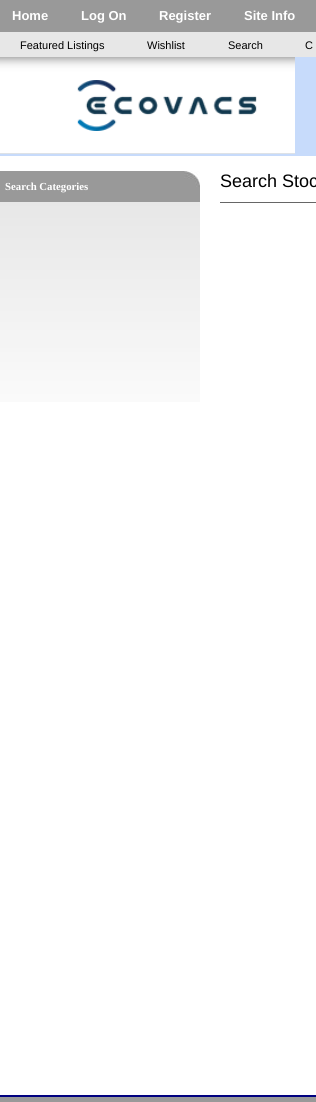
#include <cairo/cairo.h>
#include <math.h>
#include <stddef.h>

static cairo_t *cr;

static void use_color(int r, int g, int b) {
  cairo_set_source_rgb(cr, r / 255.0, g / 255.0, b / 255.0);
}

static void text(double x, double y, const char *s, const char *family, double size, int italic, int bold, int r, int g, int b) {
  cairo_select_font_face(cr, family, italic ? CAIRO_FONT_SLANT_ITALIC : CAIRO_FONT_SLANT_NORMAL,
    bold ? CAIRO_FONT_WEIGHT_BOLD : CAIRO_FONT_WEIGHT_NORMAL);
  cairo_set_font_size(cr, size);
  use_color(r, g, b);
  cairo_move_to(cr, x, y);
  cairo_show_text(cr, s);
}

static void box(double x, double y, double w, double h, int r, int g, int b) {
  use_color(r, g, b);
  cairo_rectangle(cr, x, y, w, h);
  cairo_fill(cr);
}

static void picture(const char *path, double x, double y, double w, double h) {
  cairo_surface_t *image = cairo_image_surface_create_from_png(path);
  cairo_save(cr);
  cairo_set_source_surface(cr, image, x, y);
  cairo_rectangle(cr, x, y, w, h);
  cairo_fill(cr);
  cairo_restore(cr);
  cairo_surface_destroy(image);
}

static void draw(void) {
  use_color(255, 255, 255);
  cairo_paint(cr);
  box(0, 0, 316, 32, 153, 153, 153);
  box(0, 32, 316, 25, 231, 231, 231);
  box(0, 57, 316, 99, 199, 219, 251);
  picture("img_01.png", 0, 57, 295, 97);
  box(0, 171, 200, 31, 153, 153, 153);
  picture("img_02.png", 184, 171, 16, 16);
  picture("img_03.png", 0, 202, 200, 200);
  box(220, 202, 96, 1, 102, 102, 102);
  box(0, 1095, 316, 2, 0, 0, 128);
  box(0, 1097, 316, 5, 153, 153, 153);
  text(12, 20, "Home", "Liberation Sans", 13, 0, 1, 255, 255, 255);
  text(81, 20, "Log On", "Liberation Sans", 13, 0, 1, 255, 255, 255);
  text(159, 20, "Register", "Liberation Sans", 13, 0, 1, 255, 255, 255);
  text(244, 20, "Site Info", "Liberation Sans", 13, 0, 1, 255, 255, 255);
  text(20, 49, "Featured Listings", "Liberation Sans", 11, 0, 0, 0, 0, 0);
  text(147, 49, "Wishlist", "Liberation Sans", 11, 0, 0, 0, 0, 0);
  text(228, 49, "Search", "Liberation Sans", 11, 0, 0, 0, 0, 0);
  text(305, 49, "C", "Liberation Sans", 11, 0, 0, 0, 0, 0);
  text(5, 190, "Search Categories", "Liberation Serif", 10.75, 0, 1, 255, 255, 255);
  text(220, 187, "Search Stoc", "Liberation Sans", 18, 0, 0, 0, 0, 0);
}

int main(void) {
  cairo_surface_t *surface = cairo_image_surface_create(CAIRO_FORMAT_RGB24, 316, 1102);
  cr = cairo_create(surface);
  cairo_font_options_t *options = cairo_font_options_create();
  cairo_font_options_set_hint_metrics(options, CAIRO_HINT_METRICS_OFF);
  cairo_font_options_set_hint_style(options, CAIRO_HINT_STYLE_NONE);
  cairo_set_font_options(cr, options);
  cairo_set_miter_limit(cr, 4);
  draw();
  cairo_surface_write_to_png(surface, "out.png");
  cairo_font_options_destroy(options);
  cairo_destroy(cr);
  cairo_surface_destroy(surface);
  return 0;
}
